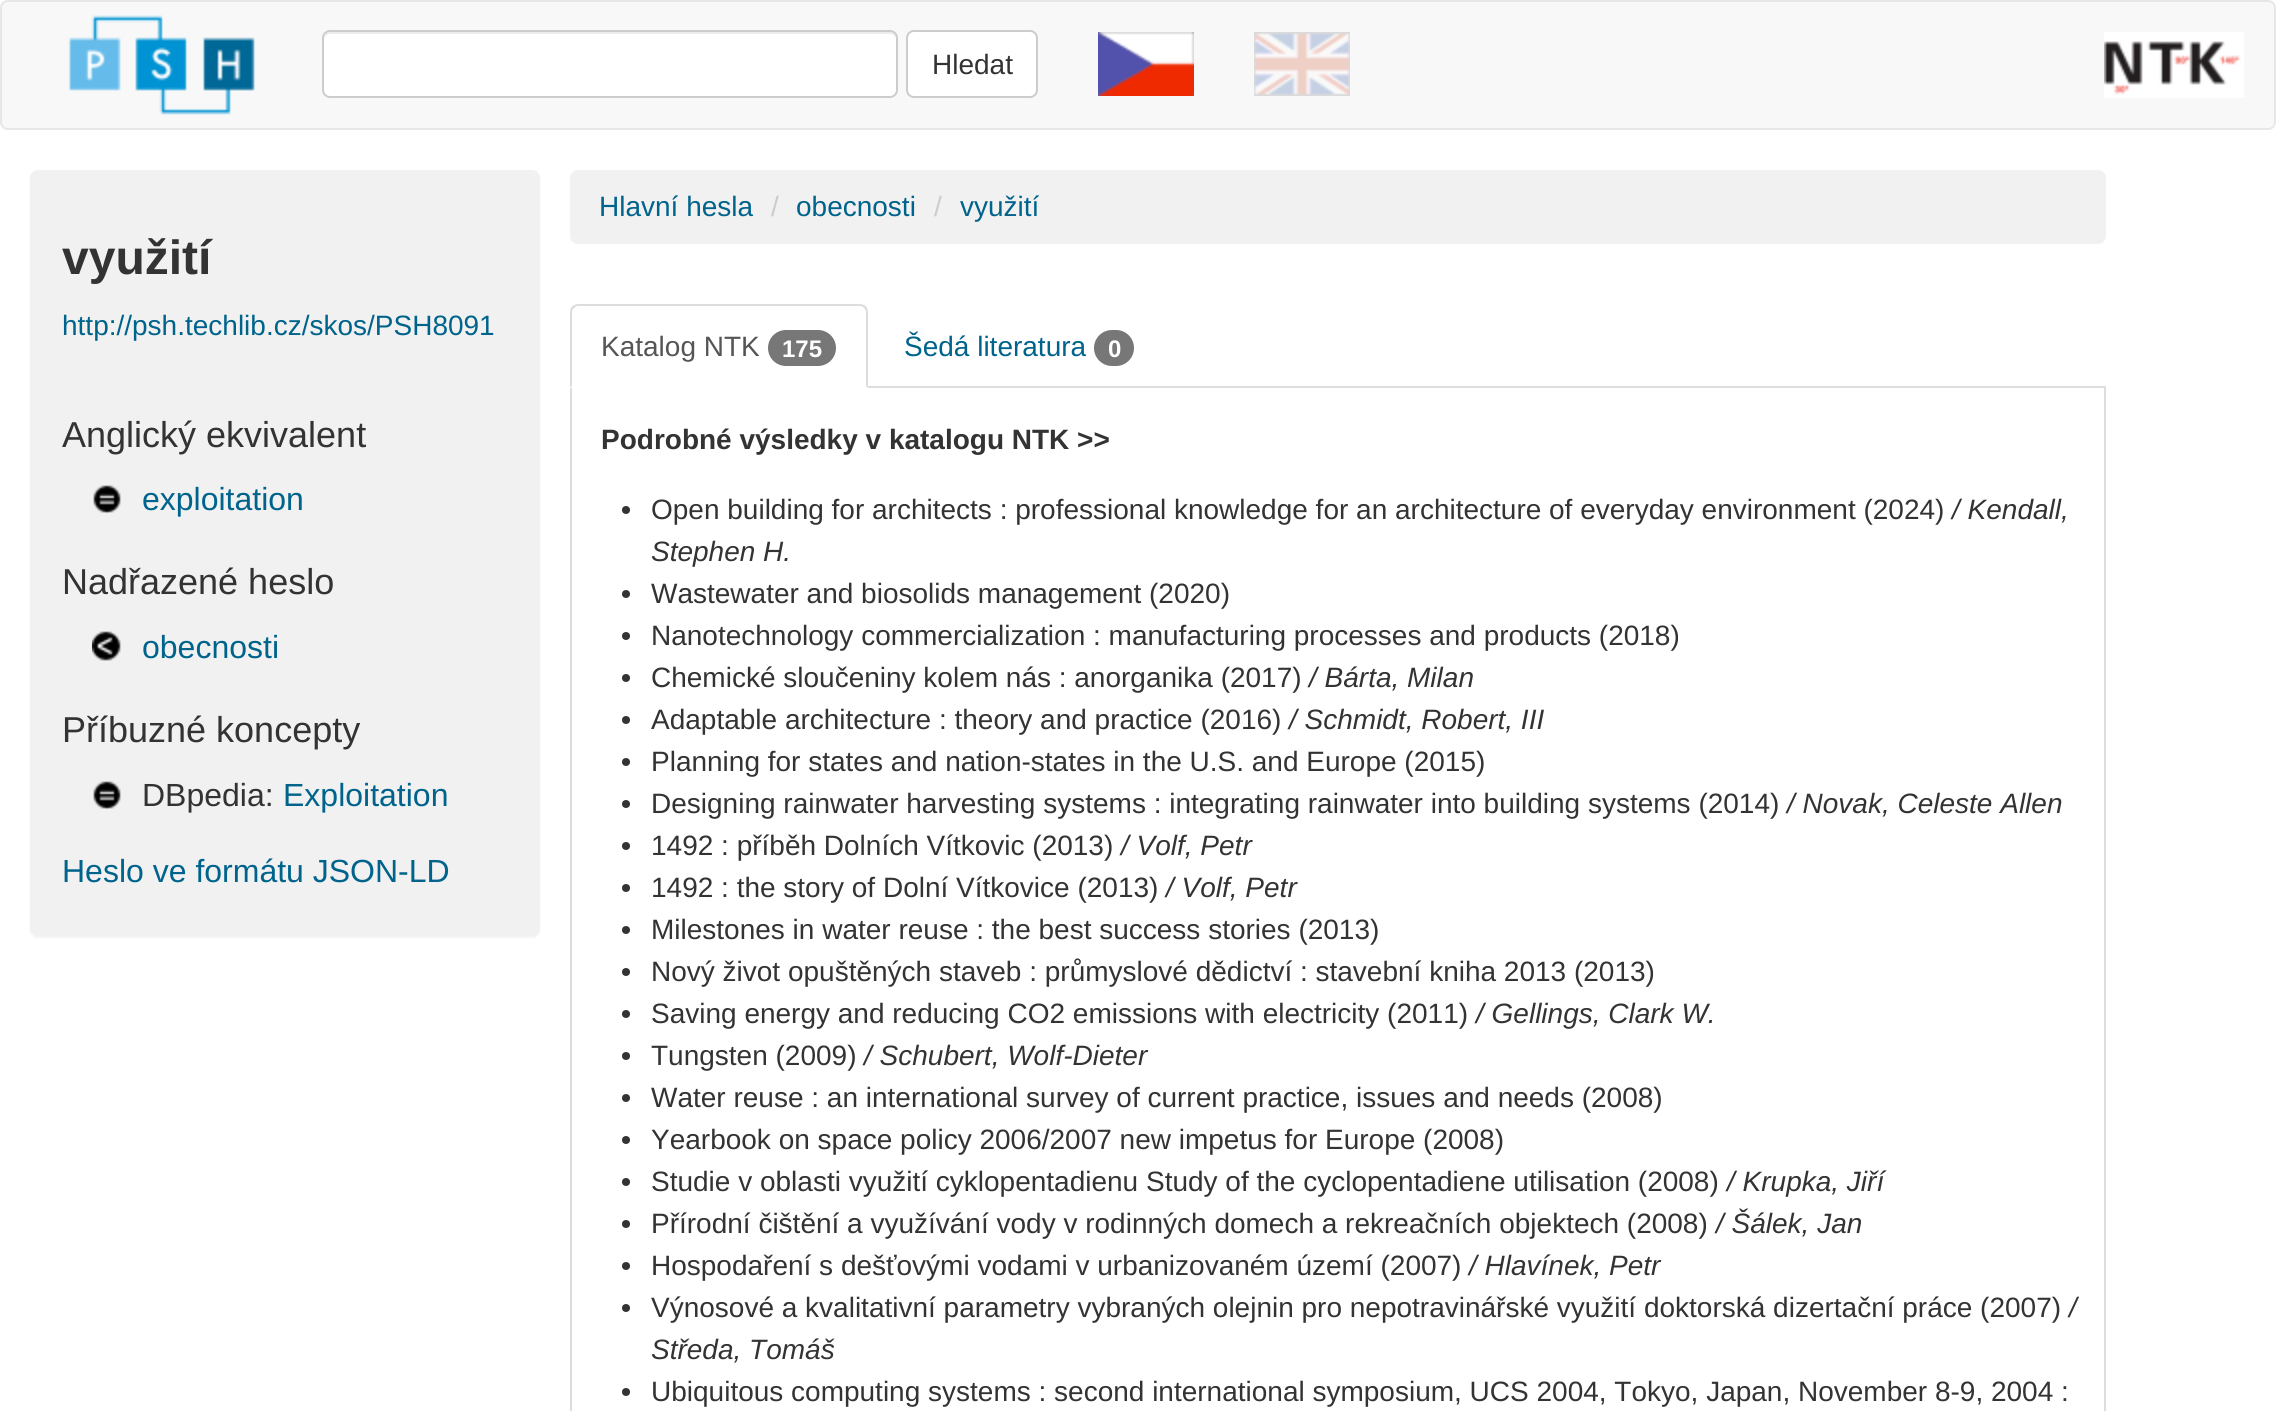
#include <cairo/cairo.h>
#include <math.h>
#include <stddef.h>

static cairo_t *cr;

static void use_color(int r, int g, int b) {
  cairo_set_source_rgb(cr, r / 255.0, g / 255.0, b / 255.0);
}

static void text(double x, double y, const char *s, const char *family, double size, int italic, int bold, int r, int g, int b) {
  cairo_select_font_face(cr, family, italic ? CAIRO_FONT_SLANT_ITALIC : CAIRO_FONT_SLANT_NORMAL,
    bold ? CAIRO_FONT_WEIGHT_BOLD : CAIRO_FONT_WEIGHT_NORMAL);
  cairo_set_font_size(cr, size);
  use_color(r, g, b);
  cairo_move_to(cr, x, y);
  cairo_show_text(cr, s);
}

static void box(double x, double y, double w, double h, int r, int g, int b) {
  use_color(r, g, b);
  cairo_rectangle(cr, x, y, w, h);
  cairo_fill(cr);
}

static void round_rect(double x, double y, double w, double h, double r) {
  cairo_new_sub_path(cr);
  cairo_arc(cr, x + w - r, y + h - r, r, 0, M_PI / 2);
  cairo_arc(cr, x + r, y + h - r, r, M_PI / 2, M_PI);
  cairo_arc(cr, x + r, y + r, r, M_PI, 1.5 * M_PI);
  cairo_arc(cr, x + w - r, y + r, r, 1.5 * M_PI, 2 * M_PI);
  cairo_close_path(cr);
}

static void shadow(double x, double y, double w, double h, double r, double blur, double alpha) {
  cairo_push_group_with_content(cr, CAIRO_CONTENT_ALPHA);
  cairo_set_operator(cr, CAIRO_OPERATOR_SOURCE);
  for (int i = 15; i >= -15 && fmin(w, h) + blur * i / 3 > 0; i -= 2) {
    double e = blur * i / 6;
    cairo_set_source_rgba(cr, 0, 0, 0, alpha * erfc((i - 1) / 8.5) / 2);
    round_rect(x - e, y - e, w + 2 * e, h + 2 * e, fmax(0, fmin(r + e + blur * .6, fmin(w, h) / 2 + e)));
    cairo_fill(cr);
  }
  cairo_pattern_t *soft = cairo_pop_group(cr);
  cairo_mask(cr, soft);
  cairo_pattern_destroy(soft);
}

static void picture(const char *path, double x, double y, double w, double h) {
  cairo_surface_t *image = cairo_image_surface_create_from_png(path);
  cairo_save(cr);
  cairo_set_source_surface(cr, image, x, y);
  cairo_rectangle(cr, x, y, w, h);
  cairo_fill(cr);
  cairo_restore(cr);
  cairo_surface_destroy(image);
}

static void draw(void) {
  use_color(255, 255, 255);
  cairo_paint(cr);
  use_color(248, 248, 248);
  round_rect(1, 1, 2274, 128, 7);
  cairo_fill_preserve(cr);
  use_color(231, 231, 231);
  cairo_stroke(cr);
  picture("img_01.png", 68, 15, 187, 100);
  use_color(255, 255, 255);
  round_rect(322, 30, 576, 68, 8);
  cairo_fill(cr);
  use_color(236, 236, 236);
  cairo_new_path(cr);
  cairo_move_to(cr, 330, 34);
  cairo_line_to(cr, 890, 34);
  cairo_curve_to(cr, 893, 34, 896, 37, 896, 40);
  cairo_curve_to(cr, 896, 36, 895, 32, 890, 32);
  cairo_line_to(cr, 330, 32);
  cairo_curve_to(cr, 325, 32, 324, 36, 324, 40);
  cairo_curve_to(cr, 324, 37, 327, 34, 330, 34);
  cairo_close_path(cr);
  cairo_fill(cr);
  round_rect(323, 31, 574, 66, 7);
  use_color(204, 204, 204);
  cairo_stroke(cr);
  use_color(255, 255, 255);
  round_rect(907, 31, 130, 66, 7);
  cairo_fill_preserve(cr);
  use_color(204, 204, 204);
  cairo_stroke(cr);
  picture("img_02.png", 1098, 32, 96, 64);
  picture("img_03.png", 1254, 32, 96, 64);
  picture("img_04.png", 2104, 32, 140, 66);
  use_color(0, 0, 0);
  shadow(30, 172, 510, 766, 8, 1, 0.05);
  use_color(241, 241, 241);
  round_rect(30, 170, 510, 766, 8);
  cairo_fill(cr);
  picture("img_05.png", 93, 485, 28, 29);
  picture("img_06.png", 92, 631, 29, 30);
  picture("img_05.png", 93, 781, 28, 29);
  round_rect(570, 170, 1536, 74, 8);
  cairo_fill(cr);
  box(868, 386, 1238, 2, 221, 221, 221);
  cairo_new_path(cr);
  cairo_move_to(cr, 578, 304);
  cairo_curve_to(cr, 576, 304, 574, 305, 572, 306);
  cairo_line_to(cr, 574, 308);
  cairo_line_to(cr, 577, 306);
  cairo_line_to(cr, 860, 306);
  cairo_curve_to(cr, 862, 306, 863, 307, 864, 308);
  cairo_line_to(cr, 866, 306);
  cairo_curve_to(cr, 864, 305, 862, 304, 860, 304);
  cairo_close_path(cr);
  cairo_fill(cr);
  cairo_new_path(cr);
  cairo_move_to(cr, 868, 388);
  cairo_line_to(cr, 868, 312);
  cairo_curve_to(cr, 868, 310, 867, 308, 866, 306);
  cairo_line_to(cr, 864, 308);
  cairo_line_to(cr, 866, 311);
  cairo_line_to(cr, 866, 386);
  cairo_close_path(cr);
  cairo_fill(cr);
  cairo_new_path(cr);
  cairo_move_to(cr, 570, 388);
  cairo_line_to(cr, 572, 386);
  cairo_line_to(cr, 572, 311);
  cairo_line_to(cr, 574, 308);
  cairo_line_to(cr, 572, 306);
  cairo_curve_to(cr, 571, 308, 570, 310, 570, 312);
  cairo_close_path(cr);
  cairo_fill(cr);
  use_color(119, 119, 119);
  round_rect(768, 330, 68, 36, 18);
  cairo_fill(cr);
  round_rect(1094, 330, 40, 36, 18);
  cairo_fill(cr);
  box(2104, 388, 2, 1023, 221, 221, 221);
  box(570, 388, 2, 1023, 221, 221, 221);
  use_color(51, 51, 51);
  cairo_arc(cr, 626, 510, 4, 0, 2 * M_PI);
  cairo_fill(cr);
  cairo_arc(cr, 626, 594, 4, 0, 2 * M_PI);
  cairo_fill(cr);
  cairo_arc(cr, 626, 636, 4, 0, 2 * M_PI);
  cairo_fill(cr);
  cairo_arc(cr, 626, 678, 4, 0, 2 * M_PI);
  cairo_fill(cr);
  cairo_arc(cr, 626, 720, 4, 0, 2 * M_PI);
  cairo_fill(cr);
  cairo_arc(cr, 626, 762, 4, 0, 2 * M_PI);
  cairo_fill(cr);
  cairo_arc(cr, 626, 804, 4, 0, 2 * M_PI);
  cairo_fill(cr);
  cairo_arc(cr, 626, 846, 4, 0, 2 * M_PI);
  cairo_fill(cr);
  cairo_arc(cr, 626, 888, 4, 0, 2 * M_PI);
  cairo_fill(cr);
  cairo_arc(cr, 626, 930, 4, 0, 2 * M_PI);
  cairo_fill(cr);
  cairo_arc(cr, 626, 972, 4, 0, 2 * M_PI);
  cairo_fill(cr);
  cairo_arc(cr, 626, 1014, 4, 0, 2 * M_PI);
  cairo_fill(cr);
  cairo_arc(cr, 626, 1056, 4, 0, 2 * M_PI);
  cairo_fill(cr);
  cairo_arc(cr, 626, 1098, 4, 0, 2 * M_PI);
  cairo_fill(cr);
  cairo_arc(cr, 626, 1140, 4, 0, 2 * M_PI);
  cairo_fill(cr);
  cairo_arc(cr, 626, 1182, 4, 0, 2 * M_PI);
  cairo_fill(cr);
  cairo_arc(cr, 626, 1224, 4, 0, 2 * M_PI);
  cairo_fill(cr);
  cairo_arc(cr, 626, 1266, 4, 0, 2 * M_PI);
  cairo_fill(cr);
  cairo_arc(cr, 626, 1308, 4, 0, 2 * M_PI);
  cairo_fill(cr);
  cairo_arc(cr, 626, 1392, 4, 0, 2 * M_PI);
  cairo_fill(cr);
  text(932, 74, "Hledat", "Liberation Sans", 28, 0, 0, 51, 51, 51);
  text(62, 274, "využití", "Liberation Sans", 48, 0, 1, 51, 51, 51);
  text(62, 335, "http://psh.techlib.cz/skos/PSH8091", "Liberation Sans", 28, 0, 0, 0, 99, 140);
  text(62, 447, "Anglický ekvivalent", "Liberation Sans", 36, 0, 0, 51, 51, 51);
  text(142, 510, "exploitation", "Liberation Sans", 32, 0, 0, 0, 99, 140);
  text(62, 594, "Nadřazené heslo", "Liberation Sans", 36, 0, 0, 51, 51, 51);
  text(142, 658, "obecnosti", "Liberation Sans", 32, 0, 0, 0, 99, 140);
  text(62, 742, "Příbuzné koncepty", "Liberation Sans", 36, 0, 0, 51, 51, 51);
  text(142, 806, "DBpedia:", "Liberation Sans", 32, 0, 0, 51, 51, 51);
  text(283, 806, "Exploitation", "Liberation Sans", 32, 0, 0, 0, 99, 140);
  text(62, 882, "Heslo ve formátu JSON-LD", "Liberation Sans", 32, 0, 0, 0, 99, 140);
  text(599, 216, "Hlavní hesla", "Liberation Sans", 28, 0, 0, 0, 99, 140);
  text(771, 216, "/", "Liberation Sans", 28, 0, 0, 204, 204, 204);
  text(796, 216, "obecnosti", "Liberation Sans", 28, 0, 0, 0, 99, 140);
  text(934, 216, "/", "Liberation Sans", 28, 0, 0, 204, 204, 204);
  text(960, 216, "využití", "Liberation Sans", 28, 0, 0, 0, 99, 140);
  text(601, 356, "Katalog NTK", "Liberation Sans", 28, 0, 0, 85, 85, 85);
  text(782, 357, "175", "Liberation Sans", 24, 0, 1, 255, 255, 255);
  text(904, 356, "Šedá literatura", "Liberation Sans", 28, 0, 0, 0, 99, 140);
  text(1108, 357, "0", "Liberation Sans", 24, 0, 1, 255, 255, 255);
  text(601, 449, "Podrobné výsledky v katalogu NTK >>", "Liberation Sans", 28, 0, 1, 51, 51, 51);
  text(651, 519, "Open building for architects : professional knowledge for an architecture of everyday environment (2024)", "Liberation Sans", 28, 0, 0, 51, 51, 51);
  text(1952, 519, "/ Kendall,", "Liberation Sans", 28, 1, 0, 51, 51, 51);
  text(651, 561, "Stephen H.", "Liberation Sans", 28, 1, 0, 51, 51, 51);
  text(651, 603, "Wastewater and biosolids management (2020)", "Liberation Sans", 28, 0, 0, 51, 51, 51);
  text(651, 645, "Nanotechnology commercialization : manufacturing processes and products (2018)", "Liberation Sans", 28, 0, 0, 51, 51, 51);
  text(651, 687, "Chemické sloučeniny kolem nás : anorganika (2017)", "Liberation Sans", 28, 0, 0, 51, 51, 51);
  text(1309, 687, "/ Bárta, Milan", "Liberation Sans", 28, 1, 0, 51, 51, 51);
  text(651, 729, "Adaptable architecture : theory and practice (2016)", "Liberation Sans", 28, 0, 0, 51, 51, 51);
  text(1289, 729, "/ Schmidt, Robert, III", "Liberation Sans", 28, 1, 0, 51, 51, 51);
  text(651, 771, "Planning for states and nation-states in the U.S. and Europe (2015)", "Liberation Sans", 28, 0, 0, 51, 51, 51);
  text(651, 813, "Designing rainwater harvesting systems : integrating rainwater into building systems (2014)", "Liberation Sans", 28, 0, 0, 51, 51, 51);
  text(1787, 813, "/ Novak, Celeste Allen", "Liberation Sans", 28, 1, 0, 51, 51, 51);
  text(651, 855, "1492 : příběh Dolních Vítkovic (2013)", "Liberation Sans", 28, 0, 0, 51, 51, 51);
  text(1121, 855, "/ Volf, Petr", "Liberation Sans", 28, 1, 0, 51, 51, 51);
  text(651, 897, "1492 : the story of Dolní Vítkovice (2013)", "Liberation Sans", 28, 0, 0, 51, 51, 51);
  text(1166, 897, "/ Volf, Petr", "Liberation Sans", 28, 1, 0, 51, 51, 51);
  text(651, 939, "Milestones in water reuse : the best success stories (2013)", "Liberation Sans", 28, 0, 0, 51, 51, 51);
  text(651, 981, "Nový život opuštěných staveb : průmyslové dědictví : stavební kniha 2013 (2013)", "Liberation Sans", 28, 0, 0, 51, 51, 51);
  text(651, 1023, "Saving energy and reducing CO2 emissions with electricity (2011)", "Liberation Sans", 28, 0, 0, 51, 51, 51);
  text(1476, 1023, "/ Gellings, Clark W.", "Liberation Sans", 28, 1, 0, 51, 51, 51);
  text(651, 1065, "Tungsten (2009)", "Liberation Sans", 28, 0, 0, 51, 51, 51);
  text(864, 1065, "/ Schubert, Wolf-Dieter", "Liberation Sans", 28, 1, 0, 51, 51, 51);
  text(651, 1107, "Water reuse : an international survey of current practice, issues and needs (2008)", "Liberation Sans", 28, 0, 0, 51, 51, 51);
  text(651, 1149, "Yearbook on space policy 2006/2007 new impetus for Europe (2008)", "Liberation Sans", 28, 0, 0, 51, 51, 51);
  text(651, 1191, "Studie v oblasti využití cyklopentadienu Study of the cyclopentadiene utilisation (2008)", "Liberation Sans", 28, 0, 0, 51, 51, 51);
  text(1727, 1191, "/ Krupka, Jiří", "Liberation Sans", 28, 1, 0, 51, 51, 51);
  text(651, 1233, "Přírodní čištění a využívání vody v rodinných domech a rekreačních objektech (2008)", "Liberation Sans", 28, 0, 0, 51, 51, 51);
  text(1716, 1233, "/ Šálek, Jan", "Liberation Sans", 28, 1, 0, 51, 51, 51);
  text(651, 1275, "Hospodaření s dešťovými vodami v urbanizovaném území (2007)", "Liberation Sans", 28, 0, 0, 51, 51, 51);
  text(1469, 1275, "/ Hlavínek, Petr", "Liberation Sans", 28, 1, 0, 51, 51, 51);
  text(651, 1317, "Výnosové a kvalitativní parametry vybraných olejnin pro nepotravinářské využití doktorská dizertační práce (2007)", "Liberation Sans", 28, 0, 0, 51, 51, 51);
  text(2069, 1317, "/", "Liberation Sans", 28, 1, 0, 51, 51, 51);
  text(651, 1359, "Středa, Tomáš", "Liberation Sans", 28, 1, 0, 51, 51, 51);
  text(651, 1401, "Ubiquitous computing systems : second international symposium, UCS 2004, Tokyo, Japan, November 8-9, 2004 :", "Liberation Sans", 28, 0, 0, 51, 51, 51);
}

int main(void) {
  cairo_surface_t *surface = cairo_image_surface_create(CAIRO_FORMAT_RGB24, 2276, 1411);
  cr = cairo_create(surface);
  cairo_font_options_t *options = cairo_font_options_create();
  cairo_font_options_set_hint_metrics(options, CAIRO_HINT_METRICS_OFF);
  cairo_font_options_set_hint_style(options, CAIRO_HINT_STYLE_NONE);
  cairo_set_font_options(cr, options);
  cairo_set_miter_limit(cr, 4);
  draw();
  cairo_surface_write_to_png(surface, "out.png");
  cairo_font_options_destroy(options);
  cairo_destroy(cr);
  cairo_surface_destroy(surface);
  return 0;
}
